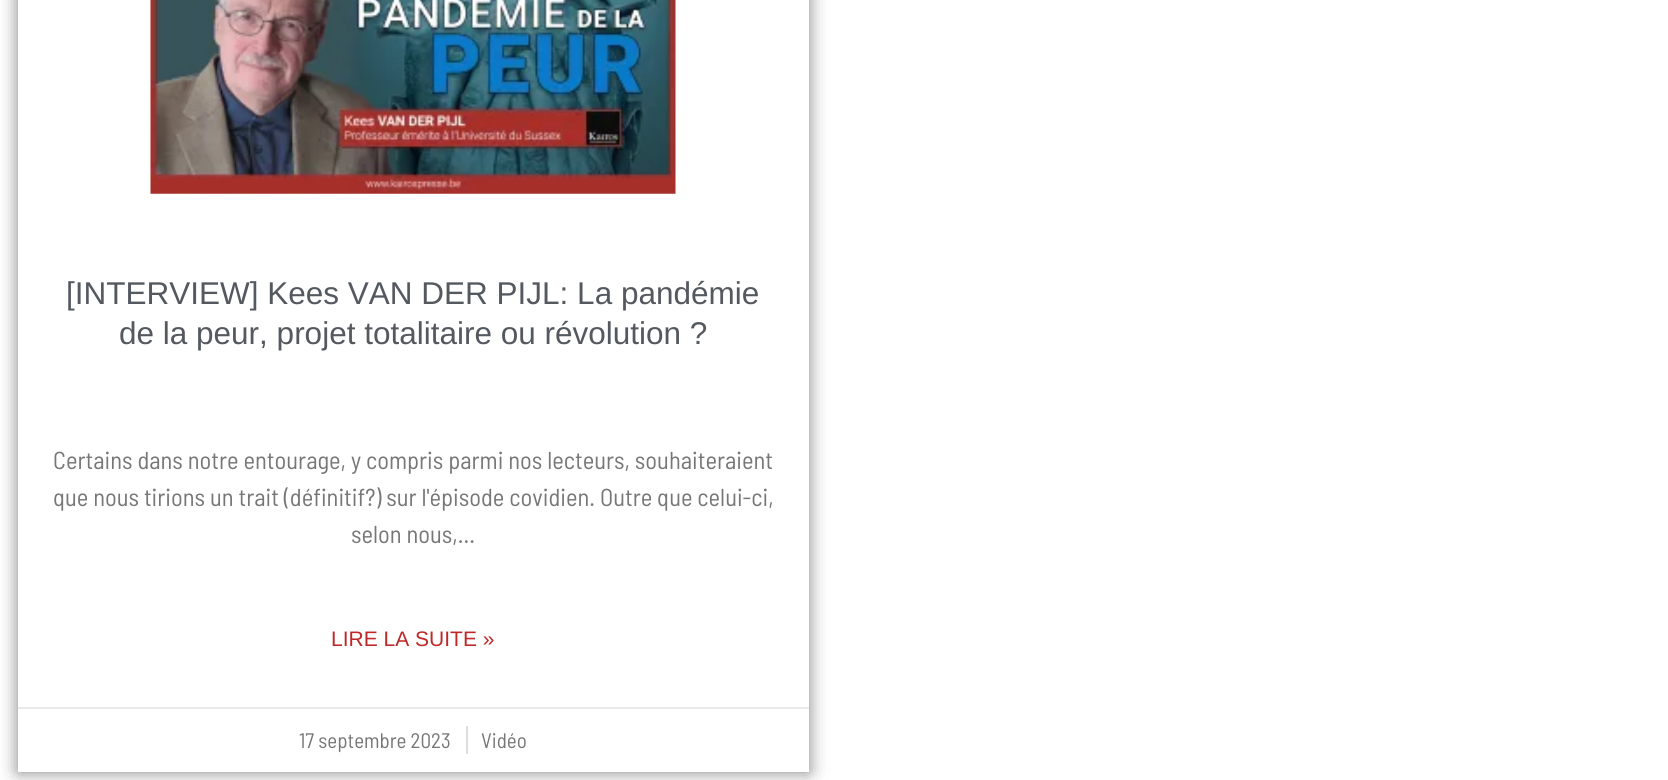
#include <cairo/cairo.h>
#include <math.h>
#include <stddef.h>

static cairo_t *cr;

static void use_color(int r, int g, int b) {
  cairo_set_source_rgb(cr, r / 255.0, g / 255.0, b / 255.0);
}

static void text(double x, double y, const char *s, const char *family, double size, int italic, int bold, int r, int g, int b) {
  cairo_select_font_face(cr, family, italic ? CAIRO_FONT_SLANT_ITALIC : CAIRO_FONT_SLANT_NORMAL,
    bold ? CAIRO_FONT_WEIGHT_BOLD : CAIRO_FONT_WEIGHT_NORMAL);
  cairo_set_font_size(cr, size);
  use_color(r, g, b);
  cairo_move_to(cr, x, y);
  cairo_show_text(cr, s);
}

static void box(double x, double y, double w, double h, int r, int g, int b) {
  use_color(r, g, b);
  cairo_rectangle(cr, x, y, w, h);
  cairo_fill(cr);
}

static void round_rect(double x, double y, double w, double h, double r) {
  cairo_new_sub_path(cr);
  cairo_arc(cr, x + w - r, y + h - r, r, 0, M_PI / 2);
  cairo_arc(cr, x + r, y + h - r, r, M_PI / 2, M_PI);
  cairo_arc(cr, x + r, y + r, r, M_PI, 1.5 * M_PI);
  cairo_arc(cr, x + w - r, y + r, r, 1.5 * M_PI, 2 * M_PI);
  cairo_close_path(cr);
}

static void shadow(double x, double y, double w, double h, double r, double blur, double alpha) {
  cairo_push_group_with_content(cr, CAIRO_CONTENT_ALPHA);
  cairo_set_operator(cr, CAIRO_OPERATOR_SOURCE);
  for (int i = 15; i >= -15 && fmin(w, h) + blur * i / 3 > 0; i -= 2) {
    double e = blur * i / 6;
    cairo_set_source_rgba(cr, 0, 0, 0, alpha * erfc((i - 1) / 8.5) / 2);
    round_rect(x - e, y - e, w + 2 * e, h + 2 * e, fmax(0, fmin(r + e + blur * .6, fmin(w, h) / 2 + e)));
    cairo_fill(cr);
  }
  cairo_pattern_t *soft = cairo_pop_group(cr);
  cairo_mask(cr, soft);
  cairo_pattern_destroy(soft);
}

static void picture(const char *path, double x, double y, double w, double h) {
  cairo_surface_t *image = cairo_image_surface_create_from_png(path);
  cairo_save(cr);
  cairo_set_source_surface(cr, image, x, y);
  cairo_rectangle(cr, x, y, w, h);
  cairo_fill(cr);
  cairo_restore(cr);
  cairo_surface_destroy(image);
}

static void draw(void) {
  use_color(255, 255, 255);
  cairo_paint(cr);
  use_color(0, 0, 0);
  shadow(18, -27, 791, 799, 0, 9, 0.5);
  box(18, 0, 791, 772, 255, 255, 255);
  picture("img_01.png", 150, 0, 526, 194);
  box(18, 707, 791, 2, 234, 234, 234);
  box(466, 726, 2, 28, 221, 221, 221);
  text(66, 304, "[INTERVIEW] Kees VAN DER PIJL: La pandémie", "Liberation Sans", 31.5, 0, 0, 84, 89, 95);
  text(119, 344, "de la peur, projet totalitaire ou révolution ?", "Liberation Sans", 31.5, 0, 0, 84, 89, 95);
  text(53, 469, "Certains dans notre entourage, y compris parmi nos lecteurs, souhaiteraient", "Barlow Semi Condensed", 24.5, 0, 0, 119, 119, 119);
  text(53, 506, "que nous tirions un trait (définitif?) sur l'épisode covidien. Outre que celui-ci,", "Barlow Semi Condensed", 24.5, 0, 0, 119, 119, 119);
  text(351, 543, "selon nous,...", "Barlow Semi Condensed", 24.5, 0, 0, 119, 119, 119);
  text(331, 646, "LIRE LA SUITE »", "Liberation Sans", 21, 0, 0, 191, 40, 40);
  text(299, 748, "17 septembre 2023", "Barlow Semi Condensed", 21, 0, 0, 119, 119, 119);
  text(481, 748, "Vidéo", "Barlow Semi Condensed", 21, 0, 0, 119, 119, 119);
}

int main(void) {
  cairo_surface_t *surface = cairo_image_surface_create(CAIRO_FORMAT_RGB24, 1668, 780);
  cr = cairo_create(surface);
  cairo_font_options_t *options = cairo_font_options_create();
  cairo_font_options_set_hint_metrics(options, CAIRO_HINT_METRICS_OFF);
  cairo_font_options_set_hint_style(options, CAIRO_HINT_STYLE_NONE);
  cairo_set_font_options(cr, options);
  cairo_set_miter_limit(cr, 4);
  draw();
  cairo_surface_write_to_png(surface, "out.png");
  cairo_font_options_destroy(options);
  cairo_destroy(cr);
  cairo_surface_destroy(surface);
  return 0;
}
